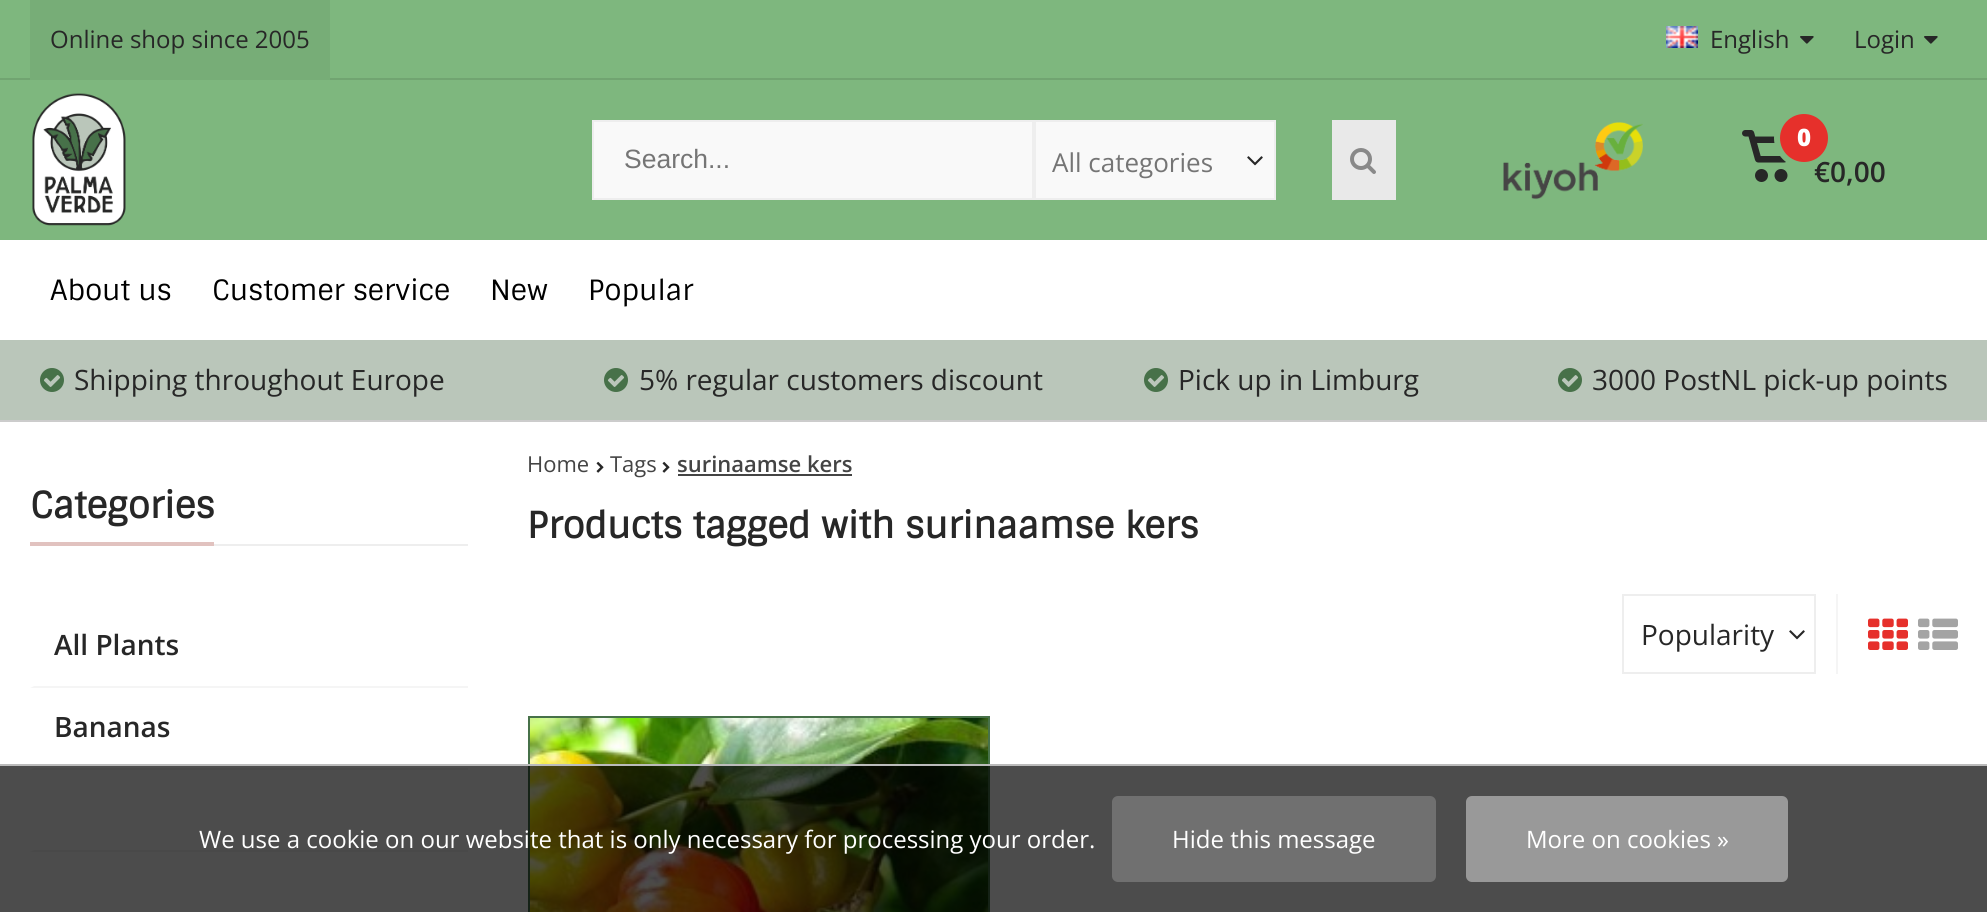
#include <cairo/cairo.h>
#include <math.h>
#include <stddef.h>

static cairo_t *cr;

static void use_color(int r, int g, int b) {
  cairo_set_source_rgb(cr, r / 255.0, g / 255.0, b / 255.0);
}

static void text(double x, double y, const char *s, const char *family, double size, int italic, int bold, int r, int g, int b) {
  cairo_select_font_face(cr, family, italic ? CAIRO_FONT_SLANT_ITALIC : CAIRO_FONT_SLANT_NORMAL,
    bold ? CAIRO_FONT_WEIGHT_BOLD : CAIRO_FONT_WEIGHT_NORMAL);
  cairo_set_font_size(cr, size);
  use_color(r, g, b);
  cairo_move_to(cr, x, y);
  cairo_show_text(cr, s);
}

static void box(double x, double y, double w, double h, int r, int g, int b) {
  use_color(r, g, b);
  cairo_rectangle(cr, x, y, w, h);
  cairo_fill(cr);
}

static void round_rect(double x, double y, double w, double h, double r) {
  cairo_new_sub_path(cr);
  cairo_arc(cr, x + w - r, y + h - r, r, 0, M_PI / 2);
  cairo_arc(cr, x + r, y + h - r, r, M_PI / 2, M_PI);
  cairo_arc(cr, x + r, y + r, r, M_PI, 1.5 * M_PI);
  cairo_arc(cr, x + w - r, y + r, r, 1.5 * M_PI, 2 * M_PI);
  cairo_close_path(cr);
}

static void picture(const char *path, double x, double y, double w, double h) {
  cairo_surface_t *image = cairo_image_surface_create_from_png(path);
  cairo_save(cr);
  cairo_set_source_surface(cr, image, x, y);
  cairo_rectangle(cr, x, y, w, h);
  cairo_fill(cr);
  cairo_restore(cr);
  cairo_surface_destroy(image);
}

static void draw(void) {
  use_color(126, 183, 126);
  cairo_paint(cr);
  box(0, 78, 1987, 2, 113, 164, 113);
  box(30, 0, 300, 80, 119, 173, 119);
  picture("img_01.png", 1666, 26, 32, 22);
  picture("img_02.png", 1800, 36, 14, 8);
  picture("img_02.png", 1924, 36, 14, 8);
  picture("img_03.png", 32, 93, 94, 133);
  use_color(249, 249, 249);
  cairo_rectangle(cr, 593, 121, 440, 78);
  cairo_fill_preserve(cr);
  use_color(238, 238, 238);
  cairo_stroke(cr);
  use_color(249, 249, 249);
  cairo_rectangle(cr, 1035, 121, 240, 78);
  cairo_fill_preserve(cr);
  use_color(238, 238, 238);
  cairo_stroke(cr);
  picture("img_04.png", 1247, 156, 16, 10);
  box(1332, 120, 64, 80, 233, 233, 233);
  picture("img_05.png", 1350, 148, 26, 26);
  picture("img_06.png", 1503, 122, 140, 78);
  picture("img_07.png", 1742, 130, 46, 52);
  box(0, 240, 1987, 100, 255, 255, 255);
  box(0, 340, 1987, 80, 186, 198, 186);
  box(0, 420, 1987, 2, 204, 204, 204);
  picture("img_08.png", 40, 368, 24, 24);
  picture("img_08.png", 604, 368, 24, 24);
  picture("img_08.png", 1144, 368, 24, 24);
  picture("img_08.png", 1558, 368, 24, 24);
  box(0, 422, 1987, 490, 255, 255, 255);
  box(214, 544, 254, 2, 238, 238, 238);
  box(30, 542, 184, 4, 225, 194, 191);
  use_color(245, 245, 245);
  cairo_new_path(cr);
  cairo_move_to(cr, 468, 688);
  cairo_line_to(cr, 30, 688);
  cairo_line_to(cr, 34, 686);
  cairo_line_to(cr, 468, 686);
  cairo_close_path(cr);
  cairo_fill(cr);
  cairo_new_path(cr);
  cairo_move_to(cr, 468, 770);
  cairo_line_to(cr, 30, 770);
  cairo_line_to(cr, 34, 768);
  cairo_line_to(cr, 468, 768);
  cairo_close_path(cr);
  cairo_fill(cr);
  cairo_new_path(cr);
  cairo_move_to(cr, 468, 852);
  cairo_line_to(cr, 30, 852);
  cairo_line_to(cr, 34, 850);
  cairo_line_to(cr, 468, 850);
  cairo_close_path(cr);
  cairo_fill(cr);
  picture("img_09.png", 596, 461, 8, 12);
  picture("img_09.png", 662, 461, 8, 12);
  box(678, 474, 174, 2, 68, 68, 68);
  box(1836, 594, 2, 80, 245, 245, 245);
  cairo_rectangle(cr, 1623, 595, 192, 78);
  use_color(238, 238, 238);
  cairo_stroke(cr);
  picture("img_10.png", 1789, 630, 16, 10);
  picture("img_11.png", 1868, 618, 40, 32);
  picture("img_12.png", 1918, 618, 40, 32);
  cairo_rectangle(cr, 529, 717, 460, 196);
  use_color(71, 113, 73);
  cairo_stroke(cr);
  picture("img_13.png", 530, 718, 458, 194);
  cairo_set_source_rgba(cr, 0, 0, 0, 0.7);
  cairo_rectangle(cr, 0, 766, 1987, 146);
  cairo_fill(cr);
  box(0, 764, 1987, 2, 187, 187, 187);
  use_color(112, 112, 112);
  round_rect(1112, 796, 324, 86, 6);
  cairo_fill(cr);
  use_color(153, 153, 153);
  round_rect(1466, 796, 322, 86, 6);
  cairo_fill(cr);
  text(50, 48, "Online shop since 2005", "Open Sans", 24, 0, 0, 39, 39, 39);
  text(1710, 48, "English", "Open Sans", 24, 0, 0, 39, 39, 39);
  text(1854, 48, "Login", "Open Sans", 24, 0, 0, 39, 39, 39);
  text(624, 168, "Search...", "Liberation Sans", 26.5, 0, 0, 117, 117, 117);
  text(1052, 172, "All categories", "Open Sans", 26, 0, 0, 117, 117, 117);
  text(1814, 182, "€0,00", "Open Sans SemiBold", 28, 0, 0, 39, 39, 39);
  use_color(230, 48, 43);
  cairo_new_path(cr);
  cairo_arc(cr, 1804, 138, 27, 0, 2 * M_PI);
  cairo_fill_preserve(cr);
  use_color(126, 183, 126);
  cairo_set_line_width(cr, 6);
  cairo_stroke(cr);
  text(1797, 146, "0", "Open Sans ExtraBold", 24, 0, 0, 255, 255, 255);
  text(50, 300, "About us", "Sintony", 28, 0, 0, 0, 0, 0);
  text(212, 300, "Customer service", "Sintony", 28, 0, 0, 0, 0, 0);
  text(490, 300, "New", "Sintony", 28, 0, 0, 0, 0, 0);
  text(588, 300, "Popular", "Sintony", 28, 0, 0, 0, 0, 0);
  text(74, 390, "Shipping throughout Europe", "Open Sans", 28, 0, 0, 39, 39, 39);
  text(639, 390, "5% regular customers discount", "Open Sans", 28, 0, 0, 39, 39, 39);
  text(1178, 390, "Pick up in Limburg", "Open Sans", 28, 0, 0, 39, 39, 39);
  text(1592, 390, "3000 PostNL pick-up points", "Open Sans", 28, 0, 0, 39, 39, 39);
  text(30, 518, "Categories", "Sintony", 36, 0, 1, 39, 39, 39);
  text(54, 655, "All Plants", "Open Sans SemiBold", 28, 0, 0, 39, 39, 39);
  text(54, 737, "Bananas", "Open Sans SemiBold", 28, 0, 0, 39, 39, 39);
  text(527, 472, "Home", "Open Sans", 22, 0, 0, 68, 68, 68);
  text(610, 472, "Tags", "Open Sans", 22, 0, 0, 68, 68, 68);
  text(677, 472, "surinaamse kers", "Open Sans SemiBold", 22, 0, 0, 68, 68, 68);
  text(527, 538, "Products tagged with surinaamse kers", "Sintony", 36, 0, 1, 39, 39, 39);
  text(1641, 645, "Popularity", "Open Sans", 28, 0, 0, 39, 39, 39);
  text(199, 848, "We use a cookie on our website that is only necessary for processing your order.", "Open Sans", 24, 0, 0, 255, 255, 255);
  text(1172, 848, "Hide this message", "Open Sans", 24, 0, 0, 255, 255, 255);
  text(1526, 848, "More on cookies »", "Open Sans", 24, 0, 0, 255, 255, 255);
}

int main(void) {
  cairo_surface_t *surface = cairo_image_surface_create(CAIRO_FORMAT_RGB24, 1987, 912);
  cr = cairo_create(surface);
  cairo_font_options_t *options = cairo_font_options_create();
  cairo_font_options_set_hint_metrics(options, CAIRO_HINT_METRICS_OFF);
  cairo_font_options_set_hint_style(options, CAIRO_HINT_STYLE_NONE);
  cairo_set_font_options(cr, options);
  cairo_set_miter_limit(cr, 4);
  draw();
  cairo_surface_write_to_png(surface, "out.png");
  cairo_font_options_destroy(options);
  cairo_destroy(cr);
  cairo_surface_destroy(surface);
  return 0;
}
